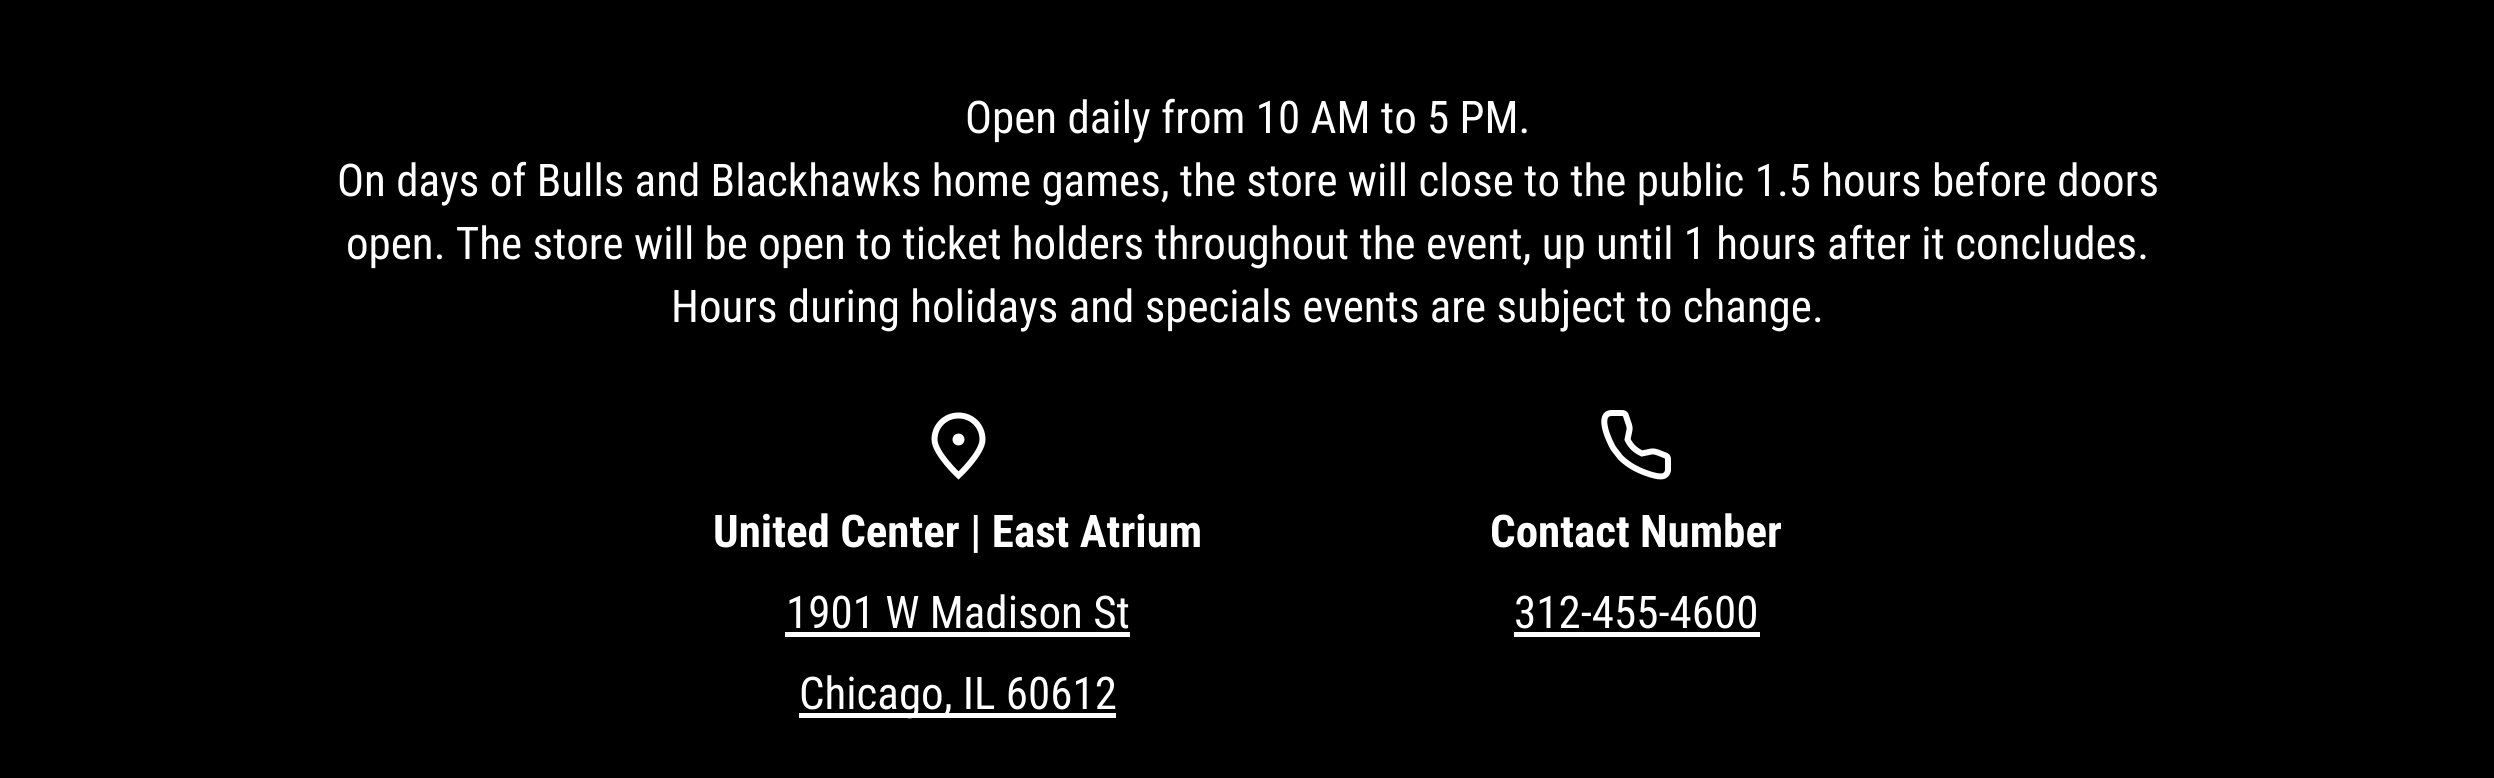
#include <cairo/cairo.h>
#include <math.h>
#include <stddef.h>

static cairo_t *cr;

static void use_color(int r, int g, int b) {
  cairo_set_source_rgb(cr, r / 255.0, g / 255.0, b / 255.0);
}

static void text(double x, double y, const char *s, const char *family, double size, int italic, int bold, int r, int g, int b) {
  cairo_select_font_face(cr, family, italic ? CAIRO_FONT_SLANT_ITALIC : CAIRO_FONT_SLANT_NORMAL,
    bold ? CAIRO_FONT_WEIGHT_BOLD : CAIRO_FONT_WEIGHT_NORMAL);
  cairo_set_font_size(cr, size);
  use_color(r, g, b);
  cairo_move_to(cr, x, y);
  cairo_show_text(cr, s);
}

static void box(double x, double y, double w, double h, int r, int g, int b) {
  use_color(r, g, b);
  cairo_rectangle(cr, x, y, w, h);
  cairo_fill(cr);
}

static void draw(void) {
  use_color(0, 0, 0);
  cairo_paint(cr);
  cairo_new_path(cr);
  cairo_move_to(cr, 982.5, 439.5);
  cairo_curve_to(cr, 982.5, 453, 958.5, 475.5, 958.5, 475.5);
  cairo_curve_to(cr, 958.5, 475.5, 934.5, 453, 934.5, 439.5);
  cairo_curve_to(cr, 934.5, 426, 945, 415.5, 958.5, 415.5);
  cairo_curve_to(cr, 972, 415.5, 982.5, 426, 982.5, 439.5);
  cairo_close_path(cr);
  use_color(255, 255, 255);
  cairo_set_line_width(cr, 6);
  cairo_stroke(cr);
  cairo_new_path(cr);
  cairo_move_to(cr, 958.5, 442.5);
  cairo_curve_to(cr, 962.5, 442.5, 962.5, 436.5, 958.5, 436.5);
  cairo_curve_to(cr, 954.5, 436.5, 954.5, 442.5, 958.5, 442.5);
  cairo_close_path(cr);
  cairo_stroke(cr);
  box(785, 632, 345, 5, 255, 255, 255);
  box(799, 713, 317, 5, 255, 255, 255);
  cairo_new_path(cr);
  cairo_move_to(cr, 1612, 413);
  cairo_line_to(cr, 1621.5, 413);
  cairo_curve_to(cr, 1626.5, 413, 1625.5, 415.5, 1627.5, 420.5);
  cairo_curve_to(cr, 1631, 430, 1629.5, 428, 1627.5, 439.5);
  cairo_curve_to(cr, 1630.5, 445.5, 1634.5, 450, 1642, 453.5);
  cairo_curve_to(cr, 1653, 451.5, 1651.5, 450, 1660.5, 453.5);
  cairo_curve_to(cr, 1668.5, 457, 1668, 455, 1668, 463.5);
  cairo_line_to(cr, 1668, 470.5);
  cairo_curve_to(cr, 1666, 479.5, 1656.5, 476, 1650.5, 474.5);
  cairo_curve_to(cr, 1639.5, 471, 1629, 466, 1620.5, 457.5);
  cairo_line_to(cr, 1613.5, 448.5);
  cairo_curve_to(cr, 1610, 443, 1595.5, 413, 1612, 413);
  cairo_close_path(cr);
  cairo_stroke(cr);
  box(1514, 632, 246, 5, 255, 255, 255);
  text(965, 133, "Open daily from 10 AM to 5 PM.", "Roboto Condensed", 45, 0, 0, 255, 255, 255);
  text(337, 196, "On days of Bulls and Blackhawks home games, the store will close to the public 1.5 hours before doors", "Roboto Condensed", 45, 0, 0, 255, 255, 255);
  text(346, 259, "open. The store will be open to ticket holders throughout the event, up until 1 hours after it concludes.", "Roboto Condensed", 45, 0, 0, 255, 255, 255);
  text(671, 322, "Hours during holidays and specials events are subject to change.", "Roboto Condensed", 45, 0, 0, 255, 255, 255);
  text(713, 547, "United Center | East Atrium", "Roboto Condensed", 45, 0, 1, 255, 255, 255);
  text(786, 628, "1901 W Madison St", "Roboto Condensed", 45, 0, 0, 255, 255, 255);
  text(799, 709, "Chicago, IL 60612", "Roboto Condensed", 45, 0, 0, 255, 255, 255);
  text(1490, 547, "Contact Number", "Roboto Condensed", 45, 0, 1, 255, 255, 255);
  text(1514, 628, "312-455-4600", "Roboto Condensed", 45, 0, 0, 255, 255, 255);
}

int main(void) {
  cairo_surface_t *surface = cairo_image_surface_create(CAIRO_FORMAT_RGB24, 2494, 778);
  cr = cairo_create(surface);
  cairo_font_options_t *options = cairo_font_options_create();
  cairo_font_options_set_hint_metrics(options, CAIRO_HINT_METRICS_OFF);
  cairo_font_options_set_hint_style(options, CAIRO_HINT_STYLE_NONE);
  cairo_set_font_options(cr, options);
  cairo_set_miter_limit(cr, 4);
  draw();
  cairo_surface_write_to_png(surface, "out.png");
  cairo_font_options_destroy(options);
  cairo_destroy(cr);
  cairo_surface_destroy(surface);
  return 0;
}
